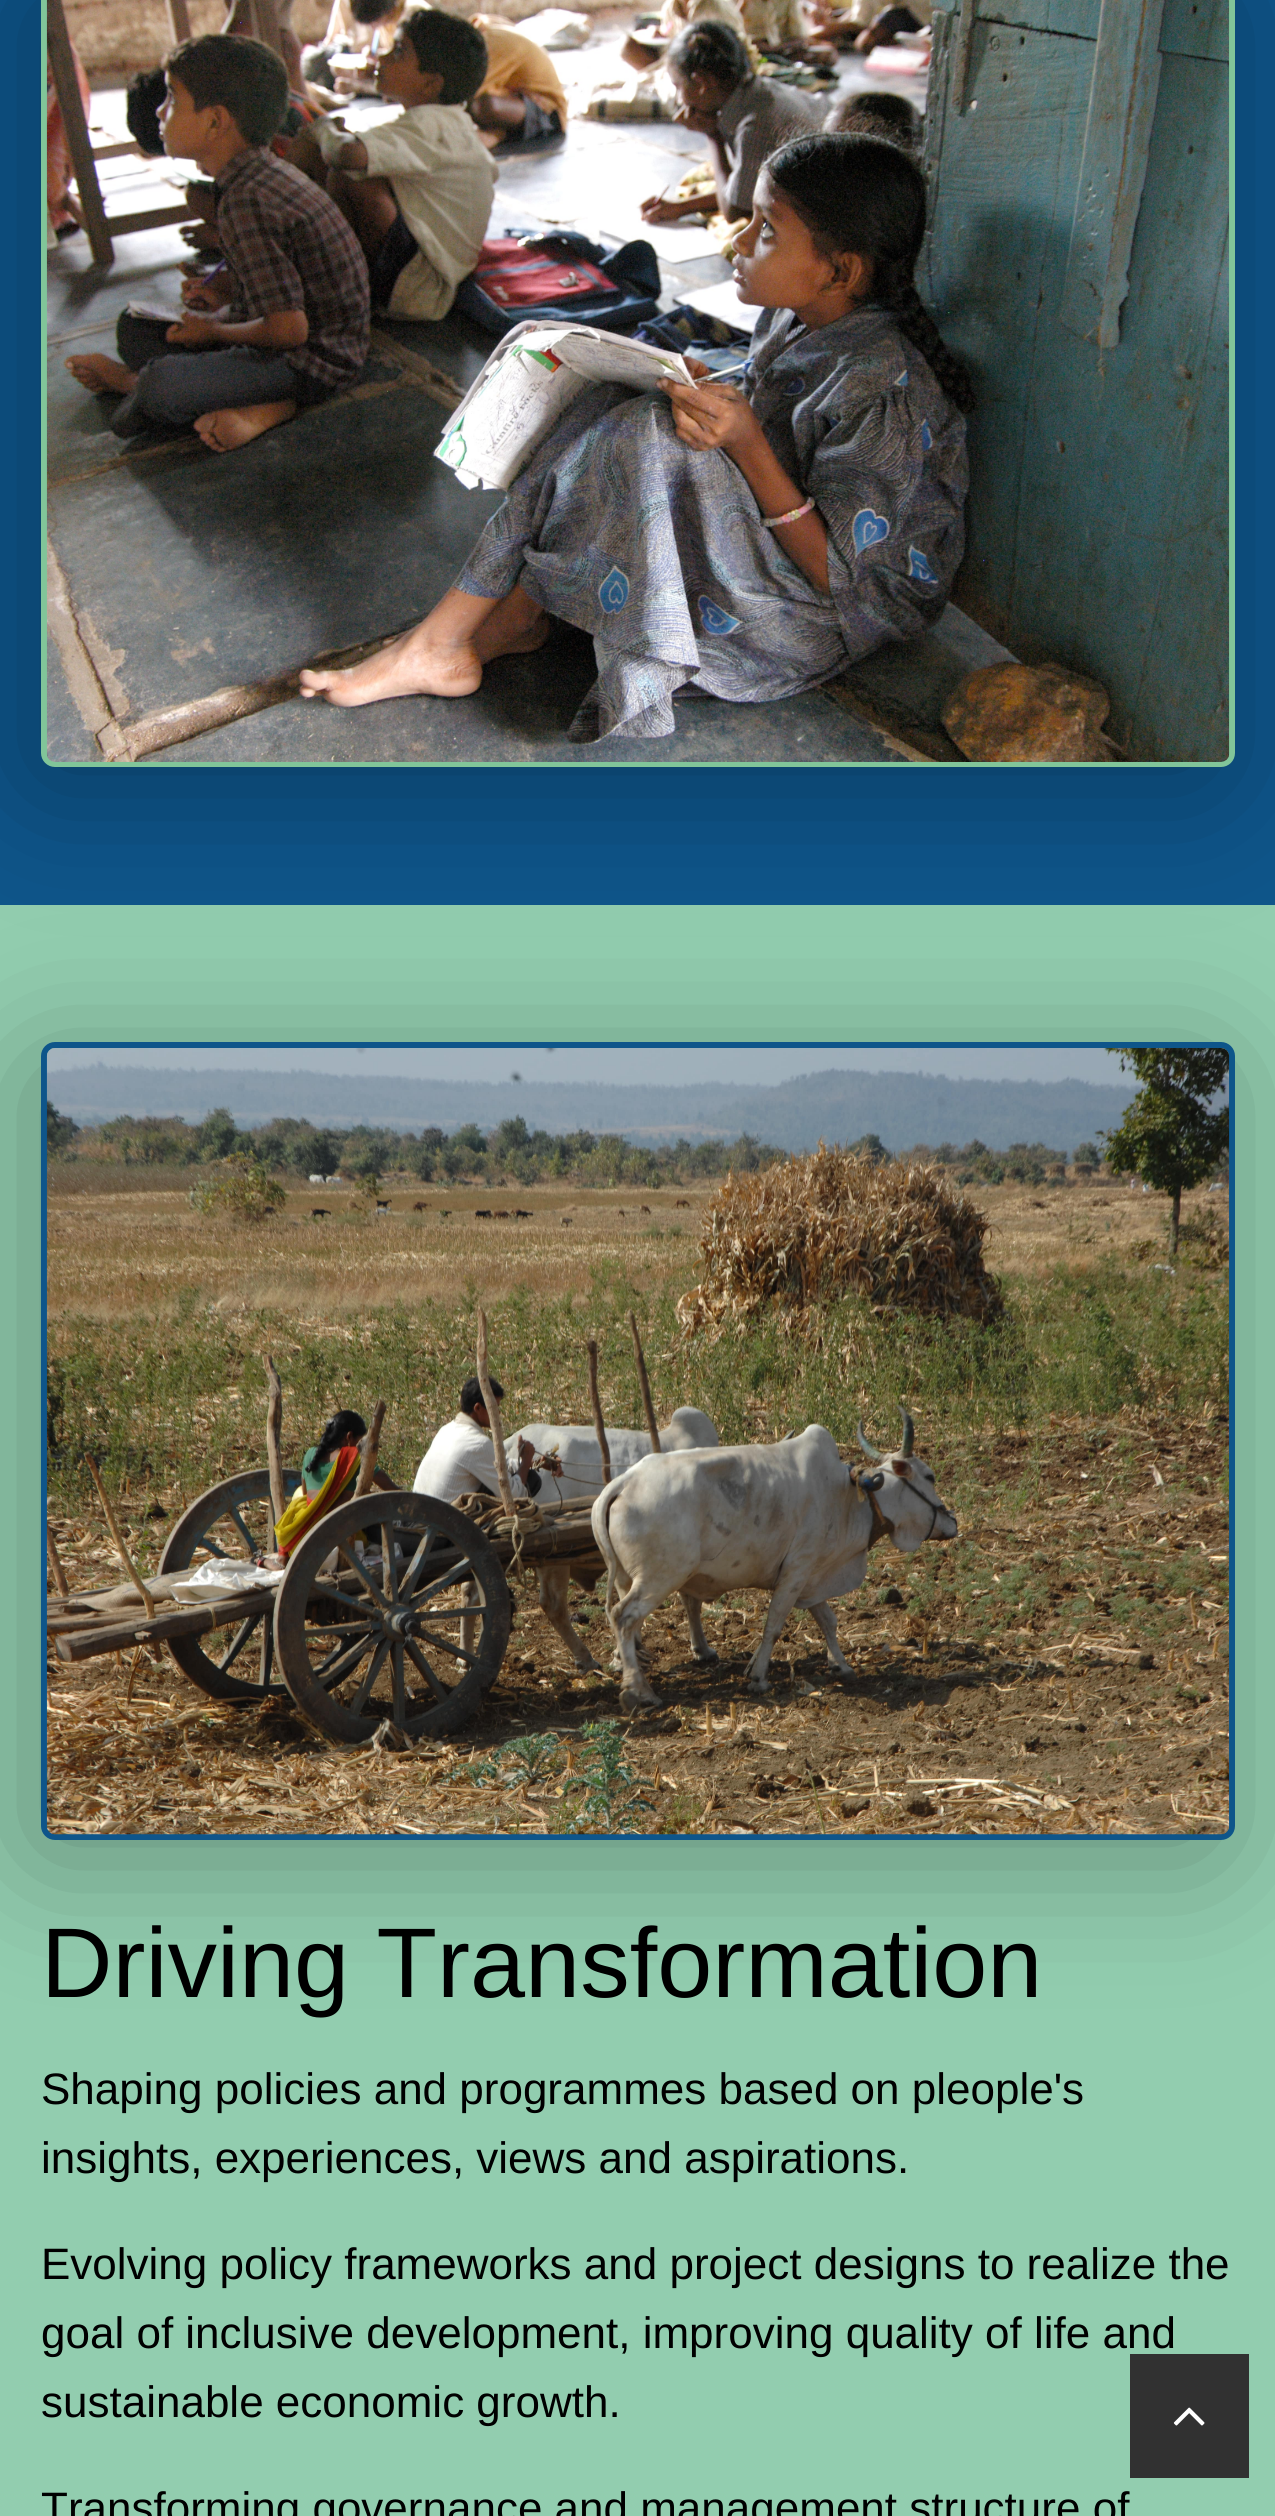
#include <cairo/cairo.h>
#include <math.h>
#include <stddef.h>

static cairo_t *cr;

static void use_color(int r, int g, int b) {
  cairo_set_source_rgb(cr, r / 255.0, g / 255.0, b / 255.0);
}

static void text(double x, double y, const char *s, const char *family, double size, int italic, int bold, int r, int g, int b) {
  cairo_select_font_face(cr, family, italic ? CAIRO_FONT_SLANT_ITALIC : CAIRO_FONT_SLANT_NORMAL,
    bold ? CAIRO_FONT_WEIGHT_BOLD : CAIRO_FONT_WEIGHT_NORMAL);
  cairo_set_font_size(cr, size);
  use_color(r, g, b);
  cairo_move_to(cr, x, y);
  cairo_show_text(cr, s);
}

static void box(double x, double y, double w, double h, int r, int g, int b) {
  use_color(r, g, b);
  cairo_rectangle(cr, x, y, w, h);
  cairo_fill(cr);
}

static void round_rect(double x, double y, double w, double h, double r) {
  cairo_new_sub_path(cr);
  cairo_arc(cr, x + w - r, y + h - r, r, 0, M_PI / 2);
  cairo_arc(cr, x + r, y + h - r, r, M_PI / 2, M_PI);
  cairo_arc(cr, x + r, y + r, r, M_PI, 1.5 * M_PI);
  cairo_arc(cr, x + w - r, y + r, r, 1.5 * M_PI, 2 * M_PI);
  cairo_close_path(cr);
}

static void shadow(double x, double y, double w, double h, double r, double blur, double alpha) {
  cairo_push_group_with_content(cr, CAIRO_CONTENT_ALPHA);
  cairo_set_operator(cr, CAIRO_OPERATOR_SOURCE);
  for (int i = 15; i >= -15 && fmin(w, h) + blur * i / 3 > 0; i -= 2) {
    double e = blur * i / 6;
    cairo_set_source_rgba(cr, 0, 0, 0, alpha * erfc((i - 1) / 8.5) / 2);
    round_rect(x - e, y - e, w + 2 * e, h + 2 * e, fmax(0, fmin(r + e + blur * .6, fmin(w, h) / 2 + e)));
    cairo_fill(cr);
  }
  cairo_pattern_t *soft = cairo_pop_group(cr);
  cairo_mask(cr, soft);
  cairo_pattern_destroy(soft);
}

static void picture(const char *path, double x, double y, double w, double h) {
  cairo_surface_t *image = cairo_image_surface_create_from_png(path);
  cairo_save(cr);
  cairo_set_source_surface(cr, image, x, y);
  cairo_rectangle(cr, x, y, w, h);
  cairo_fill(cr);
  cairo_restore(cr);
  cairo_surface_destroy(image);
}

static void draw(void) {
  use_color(14, 85, 138);
  cairo_paint(cr);
  box(0, 905, 1275, 1611, 146, 205, 175);
  use_color(0, 0, 0);
  shadow(28, -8, 1193, 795, 14, 69, 0.31);
  round_rect(44, -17, 1188, 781, 11);
  use_color(129, 197, 153);
  cairo_set_line_width(cr, 6);
  cairo_stroke(cr);
  picture("img_01.png", 46, 0, 1184, 762);
  use_color(0, 0, 0);
  shadow(28, 1062, 1193, 797, 14, 69, 0.31);
  round_rect(44, 1045, 1188, 792, 11);
  use_color(14, 85, 138);
  cairo_stroke(cr);
  picture("img_02.png", 46, 1048, 1184, 787);
  text(41, 1997, "Driving Transformation", "Liberation Sans", 99, 0, 0, 0, 0, 0);
  text(41, 2104, "Shaping policies and programmes based on pleople's", "Liberation Sans", 44, 0, 0, 0, 0, 0);
  text(41, 2173, "insights, experiences, views and aspirations.", "Liberation Sans", 44, 0, 0, 0, 0, 0);
  text(41, 2279, "Evolving policy frameworks and project designs to realize the", "Liberation Sans", 44, 0, 0, 0, 0, 0);
  text(41, 2348, "goal of inclusive development, improving quality of life and", "Liberation Sans", 44, 0, 0, 0, 0, 0);
  text(41, 2417, "sustainable economic growth.", "Liberation Sans", 44, 0, 0, 0, 0, 0);
  text(41, 2523, "Transforming governance and management structure of", "Liberation Sans", 44, 0, 0, 0, 0, 0);
  box(1130, 2354, 119, 124, 49, 49, 49);
  picture("img_03.png", 1173, 2407, 32, 19);
}

int main(void) {
  cairo_surface_t *surface = cairo_image_surface_create(CAIRO_FORMAT_RGB24, 1275, 2516);
  cr = cairo_create(surface);
  cairo_font_options_t *options = cairo_font_options_create();
  cairo_font_options_set_hint_metrics(options, CAIRO_HINT_METRICS_OFF);
  cairo_font_options_set_hint_style(options, CAIRO_HINT_STYLE_NONE);
  cairo_set_font_options(cr, options);
  cairo_set_miter_limit(cr, 4);
  draw();
  cairo_surface_write_to_png(surface, "out.png");
  cairo_font_options_destroy(options);
  cairo_destroy(cr);
  cairo_surface_destroy(surface);
  return 0;
}
